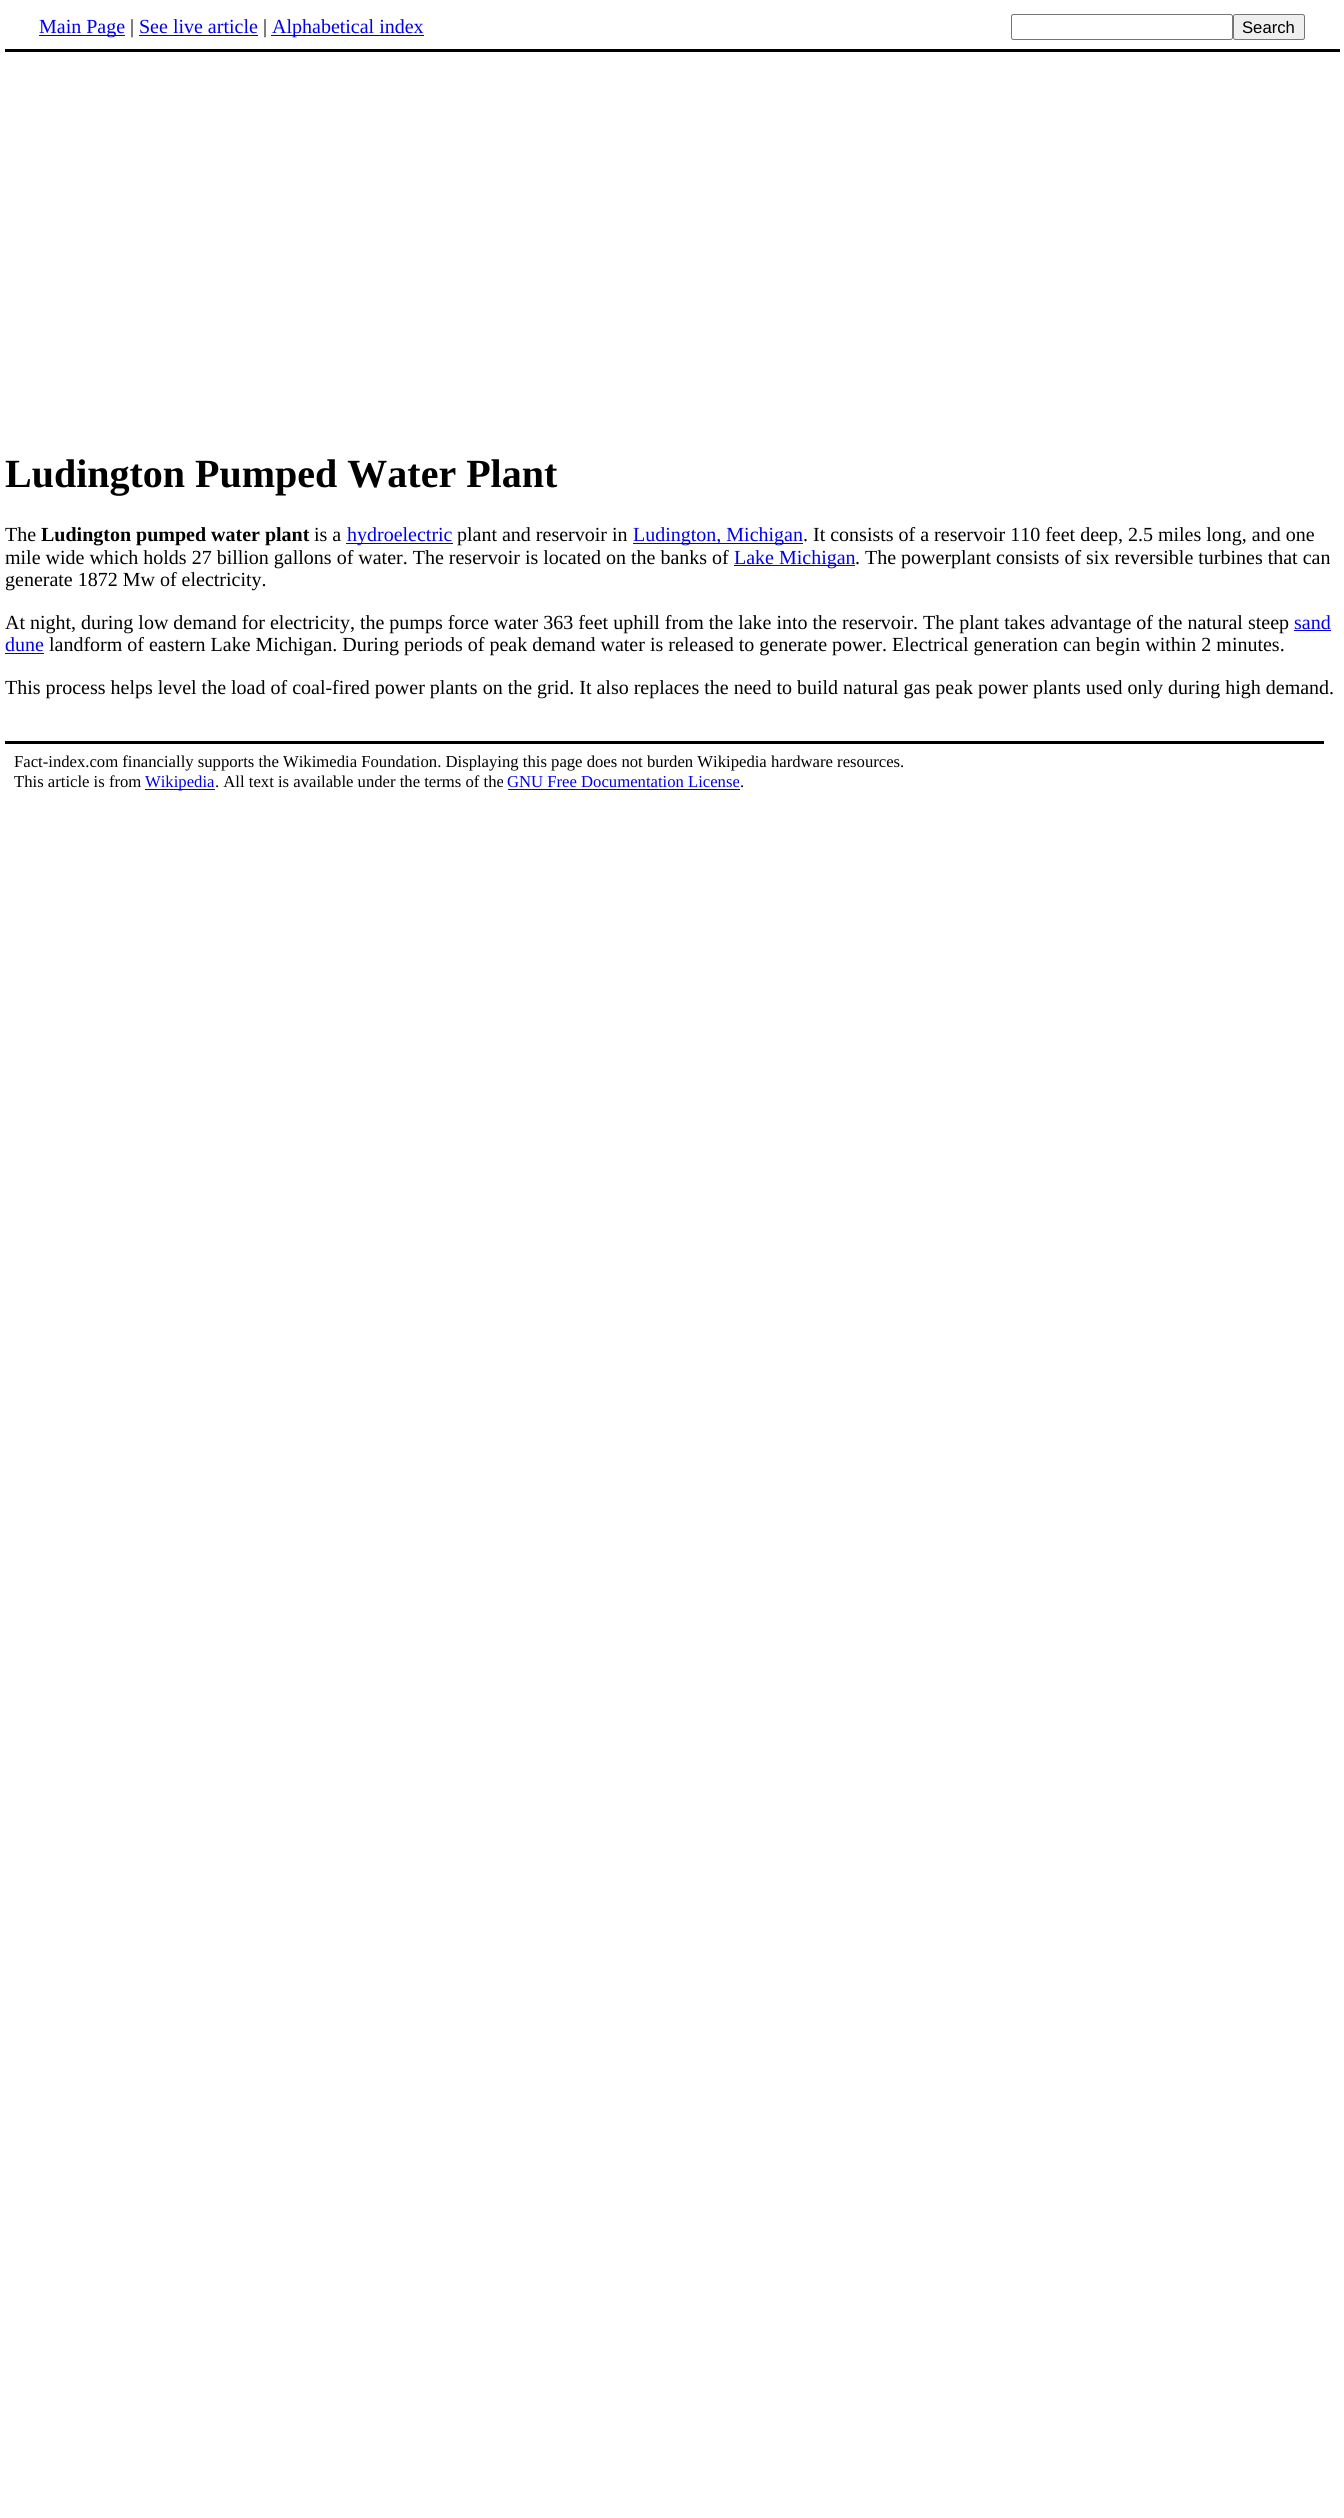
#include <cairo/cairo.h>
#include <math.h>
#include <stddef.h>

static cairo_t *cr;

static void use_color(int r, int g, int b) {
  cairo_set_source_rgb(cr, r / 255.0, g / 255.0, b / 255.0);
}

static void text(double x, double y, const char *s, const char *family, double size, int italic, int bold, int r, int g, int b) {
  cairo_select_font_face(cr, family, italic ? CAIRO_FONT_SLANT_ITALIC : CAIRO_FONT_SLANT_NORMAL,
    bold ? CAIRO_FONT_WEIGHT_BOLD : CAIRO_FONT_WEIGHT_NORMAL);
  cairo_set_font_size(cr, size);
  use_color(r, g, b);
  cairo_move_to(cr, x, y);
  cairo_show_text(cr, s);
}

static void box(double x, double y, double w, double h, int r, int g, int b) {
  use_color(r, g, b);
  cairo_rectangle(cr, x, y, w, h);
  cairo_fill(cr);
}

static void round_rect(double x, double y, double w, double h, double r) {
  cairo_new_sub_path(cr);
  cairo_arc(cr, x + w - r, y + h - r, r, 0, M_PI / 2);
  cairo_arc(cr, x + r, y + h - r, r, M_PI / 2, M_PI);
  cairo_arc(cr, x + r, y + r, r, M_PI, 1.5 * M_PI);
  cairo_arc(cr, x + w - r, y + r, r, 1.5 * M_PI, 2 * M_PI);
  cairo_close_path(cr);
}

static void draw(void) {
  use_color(255, 255, 255);
  cairo_paint(cr);
  box(5, 49, 1335, 3, 0, 0, 0);
  box(39, 35, 86, 1, 0, 0, 238);
  box(139, 35, 119, 1, 0, 0, 238);
  box(271, 35, 153, 1, 0, 0, 238);
  round_rect(1011.5, 14.5, 221, 25, 2);
  use_color(118, 118, 118);
  cairo_set_line_width(cr, 1);
  cairo_stroke(cr);
  use_color(239, 239, 239);
  round_rect(1233.5, 14.5, 71, 25, 2);
  cairo_fill_preserve(cr);
  use_color(118, 118, 118);
  cairo_stroke(cr);
  box(346, 543, 107, 1, 0, 0, 238);
  box(633, 543, 170, 1, 0, 0, 238);
  box(734, 565, 121, 1, 0, 0, 238);
  box(1294, 630, 37, 1, 0, 0, 238);
  box(5, 653, 39, 1, 0, 0, 238);
  box(5, 741, 1319, 3, 0, 0, 0);
  box(145, 789, 70, 1, 0, 0, 238);
  box(508, 789, 232, 1, 0, 0, 238);
  text(39, 33, "Main Page", "Liberation Serif", 20, 0, 0, 0, 0, 238);
  text(130, 33, "|", "Liberation Serif", 20, 0, 0, 0, 0, 0);
  text(139, 33, "See live article", "Liberation Serif", 20, 0, 0, 0, 0, 238);
  text(263, 33, "|", "Liberation Serif", 20, 0, 0, 0, 0, 0);
  text(272, 33, "Alphabetical index", "Liberation Serif", 20, 0, 0, 0, 0, 238);
  text(1242, 33, "Search", "Liberation Sans", 16.67, 0, 0, 0, 0, 0);
  text(5, 487, "Ludington Pumped Water Plant", "Liberation Serif", 40, 0, 1, 0, 0, 0);
  text(5, 541, "The", "Liberation Serif", 20, 0, 0, 0, 0, 0);
  text(41, 541, "Ludington pumped water plant", "Liberation Serif", 20, 0, 1, 0, 0, 0);
  text(314, 541, "is a", "Liberation Serif", 20, 0, 0, 0, 0, 0);
  text(347, 541, "hydroelectric", "Liberation Serif", 20, 0, 0, 0, 0, 238);
  text(457, 541, "plant and reservoir in", "Liberation Serif", 20, 0, 0, 0, 0, 0);
  text(633, 541, "Ludington, Michigan", "Liberation Serif", 20, 0, 0, 0, 0, 238);
  text(803, 541, ". It consists of a reservoir 110 feet deep, 2.5 miles long, and one", "Liberation Serif", 20, 0, 0, 0, 0, 0);
  text(5, 564, "mile wide which holds 27 billion gallons of water. The reservoir is located on the banks of", "Liberation Serif", 20, 0, 0, 0, 0, 0);
  text(734, 564, "Lake Michigan", "Liberation Serif", 20, 0, 0, 0, 0, 238);
  text(855, 564, ". The powerplant consists of six reversible turbines that can", "Liberation Serif", 20, 0, 0, 0, 0, 0);
  text(5, 586, "generate 1872 Mw of electricity.", "Liberation Serif", 20, 0, 0, 0, 0, 0);
  text(5, 629, "At night, during low demand for electricity, the pumps force water 363 feet uphill from the lake into the reservoir. The plant takes advantage of the natural steep", "Liberation Serif", 20, 0, 0, 0, 0, 0);
  text(1294, 629, "sand", "Liberation Serif", 20, 0, 0, 0, 0, 238);
  text(5, 651, "dune", "Liberation Serif", 20, 0, 0, 0, 0, 238);
  text(49, 651, "landform of eastern Lake Michigan. During periods of peak demand water is released to generate power. Electrical generation can begin within 2 minutes.", "Liberation Serif", 20, 0, 0, 0, 0, 0);
  text(5, 694, "This process helps level the load of coal-fired power plants on the grid. It also replaces the need to build natural gas peak power plants used only during high demand.", "Liberation Serif", 20, 0, 0, 0, 0, 0);
  text(14, 767, "Fact-index.com financially supports the Wikimedia Foundation. Displaying this page does not burden Wikipedia hardware resources.", "Liberation Serif", 16.67, 0, 0, 0, 0, 0);
  text(14, 787, "This article is from", "Liberation Serif", 16.67, 0, 0, 0, 0, 0);
  text(145, 787, "Wikipedia", "Liberation Serif", 16.67, 0, 0, 0, 0, 238);
  text(215, 787, ". All text is available under the terms of the", "Liberation Serif", 16.67, 0, 0, 0, 0, 0);
  text(507, 787, "GNU Free Documentation License", "Liberation Serif", 16.67, 0, 0, 0, 0, 238);
  text(740, 787, ".", "Liberation Serif", 16.67, 0, 0, 0, 0, 0);
}

int main(void) {
  cairo_surface_t *surface = cairo_image_surface_create(CAIRO_FORMAT_RGB24, 1344, 2518);
  cr = cairo_create(surface);
  cairo_font_options_t *options = cairo_font_options_create();
  cairo_font_options_set_hint_metrics(options, CAIRO_HINT_METRICS_OFF);
  cairo_font_options_set_hint_style(options, CAIRO_HINT_STYLE_NONE);
  cairo_set_font_options(cr, options);
  cairo_set_miter_limit(cr, 4);
  draw();
  cairo_surface_write_to_png(surface, "out.png");
  cairo_font_options_destroy(options);
  cairo_destroy(cr);
  cairo_surface_destroy(surface);
  return 0;
}
